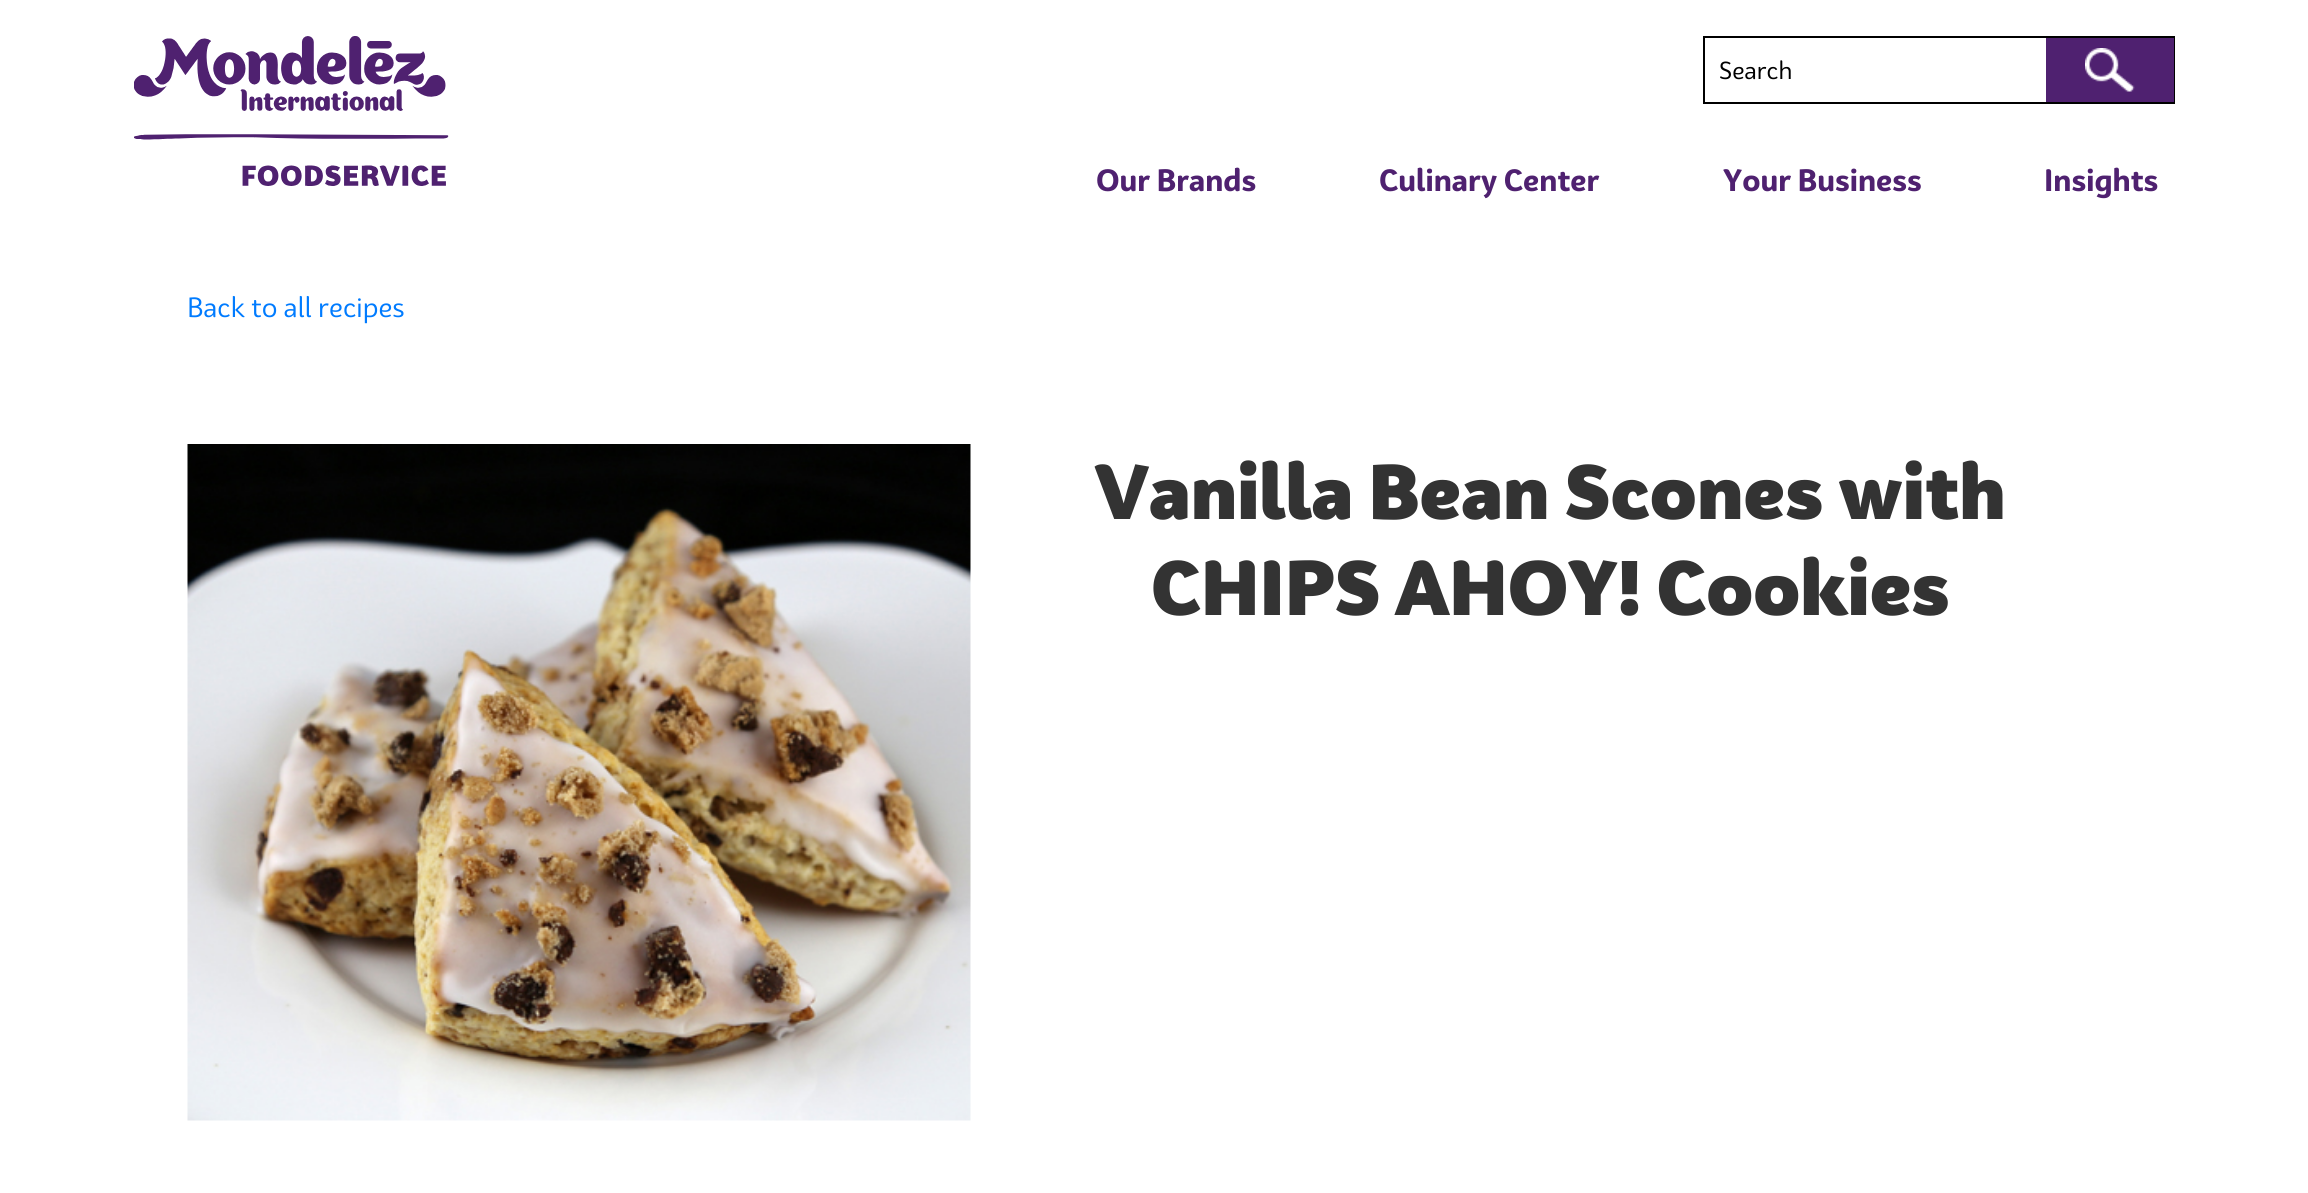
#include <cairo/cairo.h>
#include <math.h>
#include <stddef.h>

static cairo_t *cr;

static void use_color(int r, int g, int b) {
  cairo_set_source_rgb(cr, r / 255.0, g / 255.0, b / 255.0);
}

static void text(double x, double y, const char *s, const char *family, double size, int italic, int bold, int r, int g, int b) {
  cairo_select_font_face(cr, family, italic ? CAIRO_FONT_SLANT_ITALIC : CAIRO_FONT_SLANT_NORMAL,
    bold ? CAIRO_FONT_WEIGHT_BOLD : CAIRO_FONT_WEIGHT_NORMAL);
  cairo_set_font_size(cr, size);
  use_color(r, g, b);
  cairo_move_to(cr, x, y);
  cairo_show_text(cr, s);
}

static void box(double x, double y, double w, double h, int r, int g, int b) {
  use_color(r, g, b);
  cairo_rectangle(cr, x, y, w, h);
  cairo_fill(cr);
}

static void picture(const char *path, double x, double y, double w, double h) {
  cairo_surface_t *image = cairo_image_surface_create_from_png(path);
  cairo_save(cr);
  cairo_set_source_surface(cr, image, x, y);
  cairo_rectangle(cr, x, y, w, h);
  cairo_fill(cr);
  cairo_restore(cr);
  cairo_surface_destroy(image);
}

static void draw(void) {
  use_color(255, 255, 255);
  cairo_paint(cr);
  picture("img_01.png", 134, 36, 315, 150);
  cairo_rectangle(cr, 1704, 37, 470, 66);
  use_color(0, 0, 0);
  cairo_stroke(cr);
  box(2046, 38, 128, 64, 79, 33, 112);
  picture("img_02.png", 2085, 48, 50, 44);
  picture("img_03.png", 187, 444, 784, 677);
  text(1719, 79, "Search", "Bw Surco", 24, 0, 0, 0, 0, 0);
  text(1096, 191, "Our Brands", "Bw Surco", 30, 0, 1, 79, 33, 112);
  text(1379, 191, "Culinary Center", "Bw Surco", 30, 0, 1, 79, 33, 112);
  text(1723, 191, "Your Business", "Bw Surco", 30, 0, 1, 79, 33, 112);
  text(2044, 191, "Insights", "Bw Surco", 30, 0, 1, 79, 33, 112);
  text(187, 317, "Back to all recipes", "Bw Surco", 27, 0, 0, 0, 123, 255);
  text(1095, 519, "Vanilla Bean Scones with", "Bw Surco Black", 75, 0, 0, 51, 51, 51);
  text(1151, 615, "CHIPS AHOY! Cookies", "Bw Surco Black", 75, 0, 0, 51, 51, 51);
}

int main(void) {
  cairo_surface_t *surface = cairo_image_surface_create(CAIRO_FORMAT_RGB24, 2308, 1193);
  cr = cairo_create(surface);
  cairo_font_options_t *options = cairo_font_options_create();
  cairo_font_options_set_hint_metrics(options, CAIRO_HINT_METRICS_OFF);
  cairo_font_options_set_hint_style(options, CAIRO_HINT_STYLE_NONE);
  cairo_set_font_options(cr, options);
  cairo_set_miter_limit(cr, 4);
  draw();
  cairo_surface_write_to_png(surface, "out.png");
  cairo_font_options_destroy(options);
  cairo_destroy(cr);
  cairo_surface_destroy(surface);
  return 0;
}
